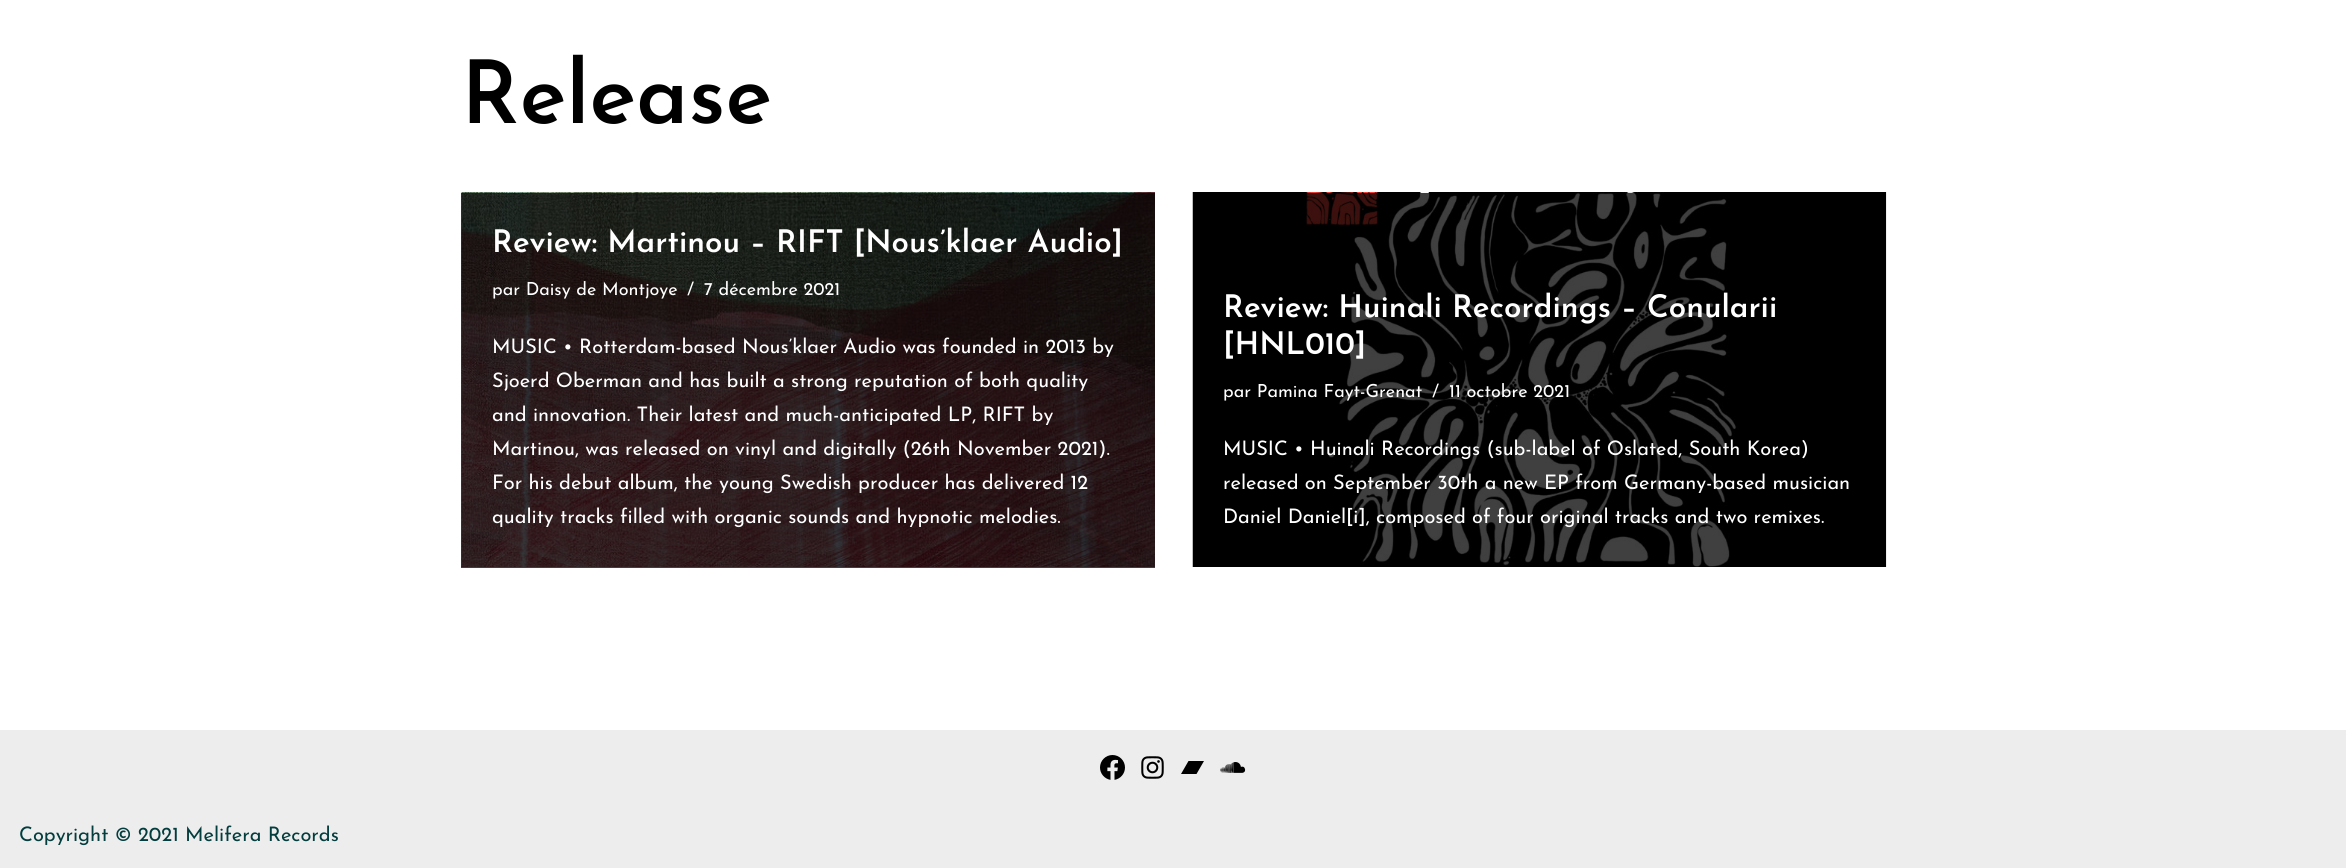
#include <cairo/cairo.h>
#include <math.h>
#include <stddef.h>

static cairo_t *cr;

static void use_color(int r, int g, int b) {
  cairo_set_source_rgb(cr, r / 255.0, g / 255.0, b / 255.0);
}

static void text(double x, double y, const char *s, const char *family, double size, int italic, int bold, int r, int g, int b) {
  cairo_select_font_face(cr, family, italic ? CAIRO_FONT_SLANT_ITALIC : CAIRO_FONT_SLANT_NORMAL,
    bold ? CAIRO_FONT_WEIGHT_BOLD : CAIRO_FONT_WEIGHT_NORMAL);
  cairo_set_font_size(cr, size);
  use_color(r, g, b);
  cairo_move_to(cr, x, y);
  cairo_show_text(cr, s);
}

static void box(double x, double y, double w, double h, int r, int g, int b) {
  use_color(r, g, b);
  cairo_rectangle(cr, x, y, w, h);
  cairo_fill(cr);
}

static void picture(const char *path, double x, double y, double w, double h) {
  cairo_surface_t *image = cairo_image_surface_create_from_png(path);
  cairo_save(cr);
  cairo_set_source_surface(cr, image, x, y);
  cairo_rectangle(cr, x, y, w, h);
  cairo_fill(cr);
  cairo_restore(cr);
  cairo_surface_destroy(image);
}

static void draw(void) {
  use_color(255, 255, 255);
  cairo_paint(cr);
  box(461, 193, 694, 375, 64, 64, 64);
  picture("img_01.png", 461, 192, 694, 375);
  picture("img_02.png", 1192, 192, 695, 375);
  box(0, 730, 2346, 138, 237, 237, 237);
  picture("img_03.png", 1100, 755, 25, 25);
  picture("img_04.png", 1141, 756, 23, 23);
  use_color(0, 0, 0);
  cairo_new_path(cr);
  cairo_move_to(cr, 1196.5, 774);
  cairo_line_to(cr, 1181, 774);
  cairo_line_to(cr, 1188.5, 761);
  cairo_line_to(cr, 1204, 761);
  cairo_line_to(cr, 1196.5, 774);
  cairo_fill(cr);
  picture("img_05.png", 1220, 762, 26, 11);
  text(461, 123, "Release", "Josefin Sans SemiBold", 87.5, 0, 0, 0, 0, 0);
  text(492, 252, "Review: Martinou – RIFT [Nous’klaer Audio]", "Josefin Sans SemiBold", 31.25, 0, 0, 255, 255, 255);
  text(492, 295, "par Daisy de Montjoye", "Josefin Sans", 18, 0, 0, 255, 255, 255);
  text(687, 295, "/", "Josefin Sans", 18, 0, 0, 255, 255, 255);
  text(704, 295, "7 décembre 2021", "Josefin Sans", 18, 0, 0, 255, 255, 255);
  text(492, 353, "MUSIC • Rotterdam-based Nous’klaer Audio was founded in 2013 by", "Josefin Sans", 20, 0, 0, 255, 255, 255);
  text(492, 387, "Sjoerd Oberman and has built a strong reputation of both quality", "Josefin Sans", 20, 0, 0, 255, 255, 255);
  text(492, 421, "and innovation. Their latest and much-anticipated LP, RIFT by", "Josefin Sans", 20, 0, 0, 255, 255, 255);
  text(492, 455, "Martinou, was released on vinyl and digitally (26th November 2021).", "Josefin Sans", 20, 0, 0, 255, 255, 255);
  text(492, 489, "For his debut album, the young Swedish producer has delivered 12", "Josefin Sans", 20, 0, 0, 255, 255, 255);
  text(492, 523, "quality tracks filled with organic sounds and hypnotic melodies.", "Josefin Sans", 20, 0, 0, 255, 255, 255);
  text(1223, 317, "Review: Huinali Recordings – Conularii", "Josefin Sans SemiBold", 31.25, 0, 0, 255, 255, 255);
  text(1223, 354, "[HNL010]", "Josefin Sans SemiBold", 31.25, 0, 0, 255, 255, 255);
  text(1223, 397, "par Pamina Fayt-Grenat", "Josefin Sans", 18, 0, 0, 255, 255, 255);
  text(1432, 397, "/", "Josefin Sans", 18, 0, 0, 255, 255, 255);
  text(1449, 397, "11 octobre 2021", "Josefin Sans", 18, 0, 0, 255, 255, 255);
  text(1223, 455, "MUSIC • Huinali Recordings (sub-label of Oslated, South Korea)", "Josefin Sans", 20, 0, 0, 255, 255, 255);
  text(1223, 489, "released on September 30th a new EP from Germany-based musician", "Josefin Sans", 20, 0, 0, 255, 255, 255);
  text(1223, 523, "Daniel Daniel[i], composed of four original tracks and two remixes.", "Josefin Sans", 20, 0, 0, 255, 255, 255);
  text(19, 841, "Copyright © 2021 Melifera Records", "Josefin Sans", 20, 0, 0, 3, 61, 61);
}

int main(void) {
  cairo_surface_t *surface = cairo_image_surface_create(CAIRO_FORMAT_RGB24, 2346, 868);
  cr = cairo_create(surface);
  cairo_font_options_t *options = cairo_font_options_create();
  cairo_font_options_set_hint_metrics(options, CAIRO_HINT_METRICS_OFF);
  cairo_font_options_set_hint_style(options, CAIRO_HINT_STYLE_NONE);
  cairo_set_font_options(cr, options);
  cairo_set_miter_limit(cr, 4);
  draw();
  cairo_surface_write_to_png(surface, "out.png");
  cairo_font_options_destroy(options);
  cairo_destroy(cr);
  cairo_surface_destroy(surface);
  return 0;
}
